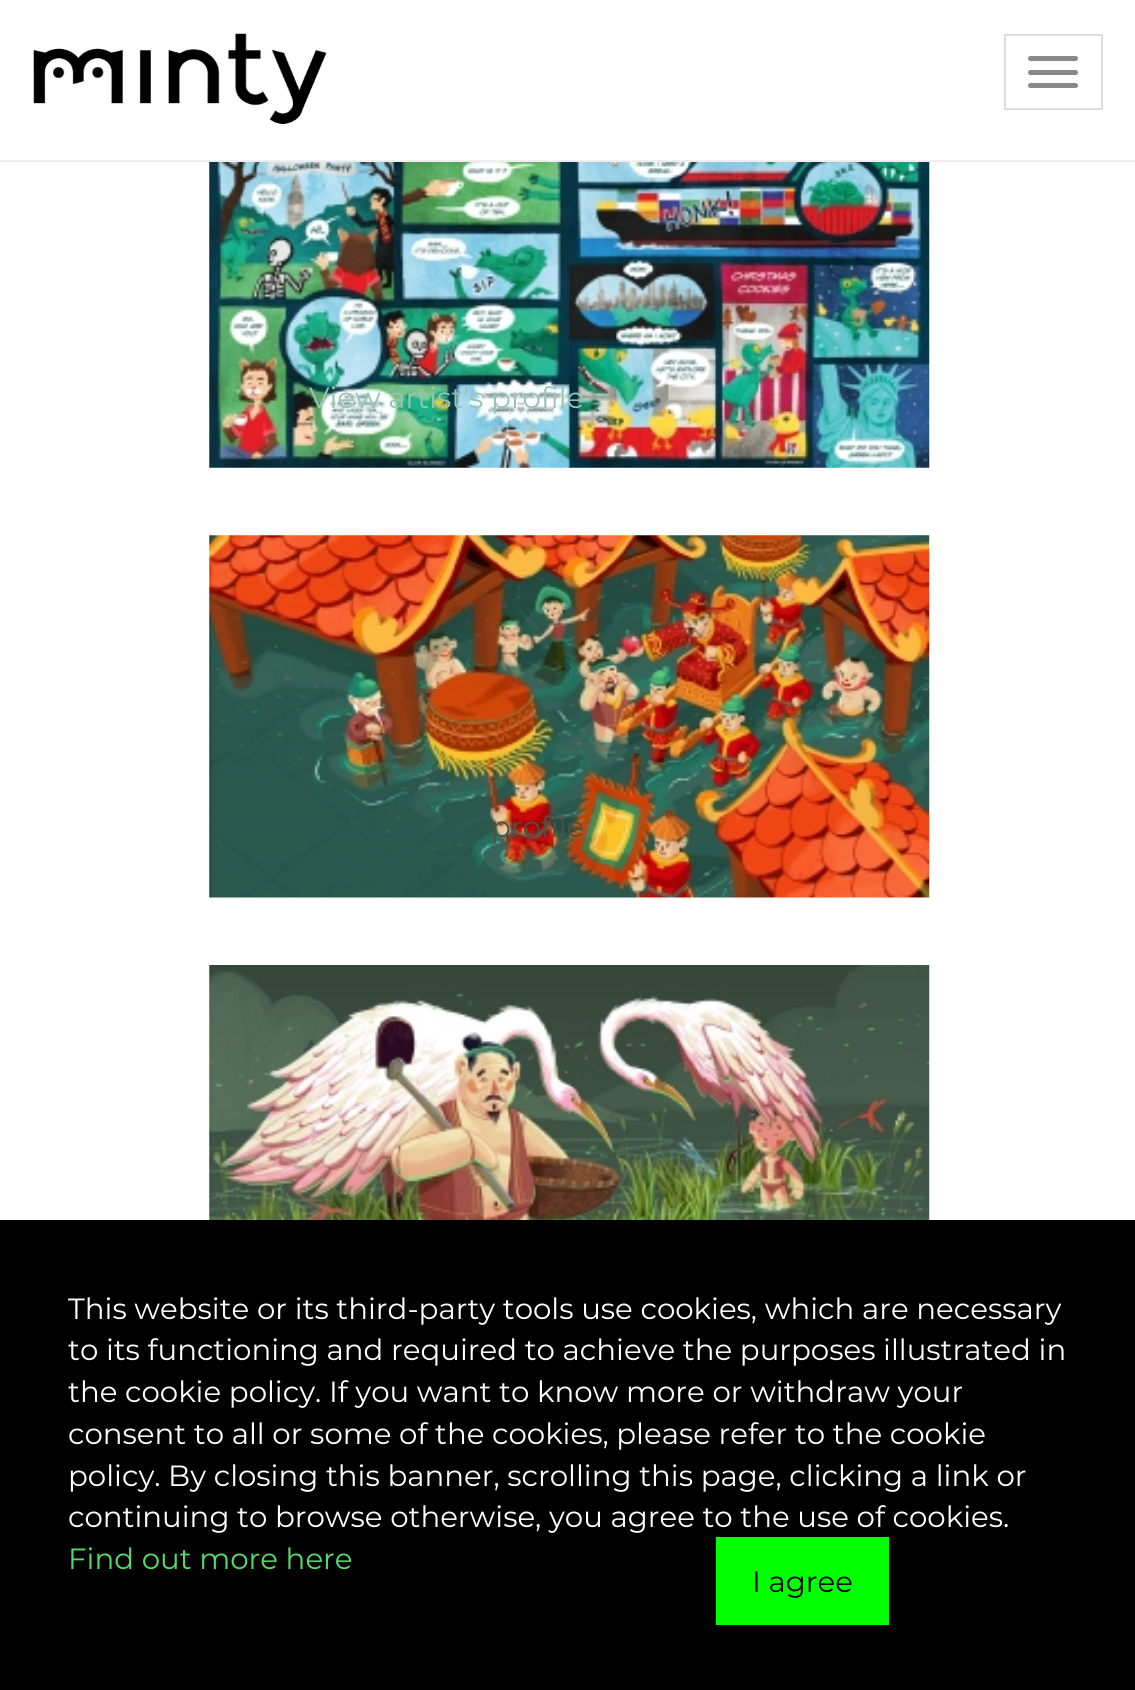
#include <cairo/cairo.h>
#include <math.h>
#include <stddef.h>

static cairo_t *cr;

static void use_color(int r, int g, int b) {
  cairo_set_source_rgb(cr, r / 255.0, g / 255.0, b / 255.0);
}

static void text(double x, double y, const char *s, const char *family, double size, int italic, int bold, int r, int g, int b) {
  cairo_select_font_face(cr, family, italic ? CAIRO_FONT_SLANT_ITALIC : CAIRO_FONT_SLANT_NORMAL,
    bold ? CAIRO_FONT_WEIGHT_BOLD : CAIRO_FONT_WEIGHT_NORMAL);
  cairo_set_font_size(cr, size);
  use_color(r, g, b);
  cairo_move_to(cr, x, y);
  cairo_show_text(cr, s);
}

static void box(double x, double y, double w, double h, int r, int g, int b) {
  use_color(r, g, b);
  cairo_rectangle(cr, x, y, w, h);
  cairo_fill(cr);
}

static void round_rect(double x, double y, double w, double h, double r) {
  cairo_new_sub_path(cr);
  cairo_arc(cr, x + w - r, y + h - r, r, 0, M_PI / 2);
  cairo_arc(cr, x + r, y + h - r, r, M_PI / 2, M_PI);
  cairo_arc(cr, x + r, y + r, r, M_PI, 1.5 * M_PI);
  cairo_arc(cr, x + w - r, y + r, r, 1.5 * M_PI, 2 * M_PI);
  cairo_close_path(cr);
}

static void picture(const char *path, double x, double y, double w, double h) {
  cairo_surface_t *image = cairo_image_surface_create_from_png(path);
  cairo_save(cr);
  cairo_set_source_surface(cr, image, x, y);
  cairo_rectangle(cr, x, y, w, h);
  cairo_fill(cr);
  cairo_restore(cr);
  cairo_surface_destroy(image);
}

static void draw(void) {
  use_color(255, 255, 255);
  cairo_paint(cr);
  box(0, 160, 1135, 2, 238, 238, 238);
  picture("img_01.png", 33, 33, 294, 91);
  cairo_rectangle(cr, 1005, 35, 97, 74);
  use_color(221, 221, 221);
  cairo_stroke(cr);
  use_color(136, 136, 136);
  round_rect(1028, 56, 50, 5, 2.5);
  cairo_fill(cr);
  round_rect(1028, 70, 50, 5, 2.5);
  cairo_fill(cr);
  round_rect(1028, 83, 50, 5, 2.5);
  cairo_fill(cr);
  picture("img_02.png", 209, 162, 721, 306);
  picture("img_03.png", 209, 535, 721, 363);
  picture("img_04.png", 209, 965, 721, 255);
  box(0, 1220, 1135, 470, 0, 0, 0);
  box(716, 1537, 173, 88, 0, 255, 0);
  text(309, 408, "View artist's profile", "Montserrat", 29.25, 0, 0, 154, 194, 181);
  text(491, 837, "profile", "Montserrat", 29.25, 0, 0, 73, 83, 69);
  text(68, 1319, "This website or its third-party tools use cookies, which are necessary", "Montserrat", 29.25, 0, 0, 255, 255, 255);
  text(68, 1360, "to its functioning and required to achieve the purposes illustrated in", "Montserrat", 29.25, 0, 0, 255, 255, 255);
  text(68, 1402, "the cookie policy. If you want to know more or withdraw your", "Montserrat", 29.25, 0, 0, 255, 255, 255);
  text(68, 1444, "consent to all or some of the cookies, please refer to the cookie", "Montserrat", 29.25, 0, 0, 255, 255, 255);
  text(68, 1486, "policy. By closing this banner, scrolling this page, clicking a link or", "Montserrat", 29.25, 0, 0, 255, 255, 255);
  text(68, 1527, "continuing to browse otherwise, you agree to the use of cookies.", "Montserrat", 29.25, 0, 0, 255, 255, 255);
  text(68, 1569, "Find out more here", "Montserrat", 29.25, 0, 0, 83, 221, 108);
  text(752, 1592, "I agree", "Montserrat", 29.25, 0, 0, 0, 0, 0);
}

int main(void) {
  cairo_surface_t *surface = cairo_image_surface_create(CAIRO_FORMAT_RGB24, 1135, 1690);
  cr = cairo_create(surface);
  cairo_font_options_t *options = cairo_font_options_create();
  cairo_font_options_set_hint_metrics(options, CAIRO_HINT_METRICS_OFF);
  cairo_font_options_set_hint_style(options, CAIRO_HINT_STYLE_NONE);
  cairo_set_font_options(cr, options);
  cairo_set_miter_limit(cr, 4);
  draw();
  cairo_surface_write_to_png(surface, "out.png");
  cairo_font_options_destroy(options);
  cairo_destroy(cr);
  cairo_surface_destroy(surface);
  return 0;
}
